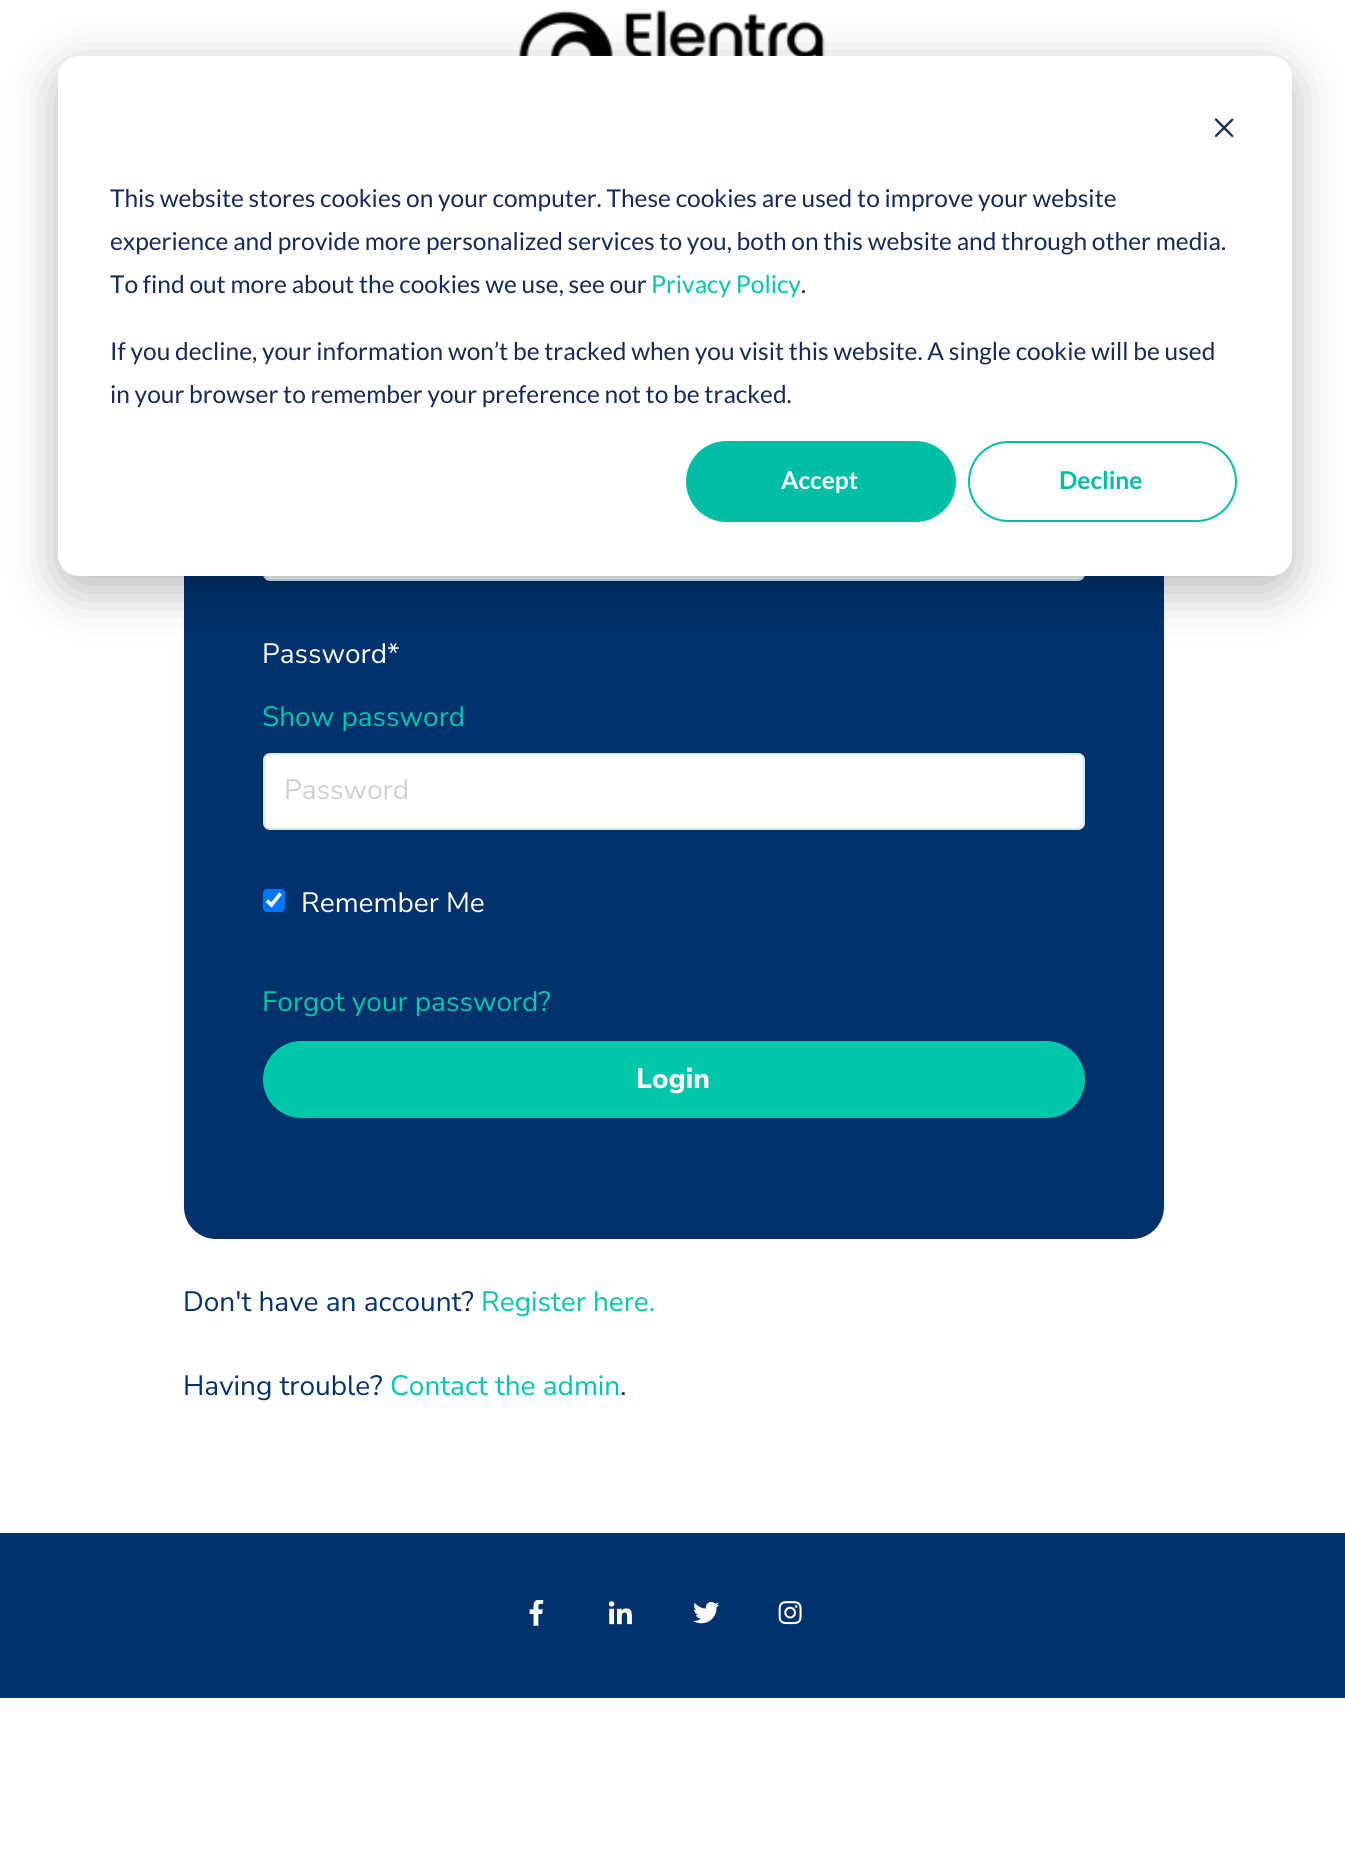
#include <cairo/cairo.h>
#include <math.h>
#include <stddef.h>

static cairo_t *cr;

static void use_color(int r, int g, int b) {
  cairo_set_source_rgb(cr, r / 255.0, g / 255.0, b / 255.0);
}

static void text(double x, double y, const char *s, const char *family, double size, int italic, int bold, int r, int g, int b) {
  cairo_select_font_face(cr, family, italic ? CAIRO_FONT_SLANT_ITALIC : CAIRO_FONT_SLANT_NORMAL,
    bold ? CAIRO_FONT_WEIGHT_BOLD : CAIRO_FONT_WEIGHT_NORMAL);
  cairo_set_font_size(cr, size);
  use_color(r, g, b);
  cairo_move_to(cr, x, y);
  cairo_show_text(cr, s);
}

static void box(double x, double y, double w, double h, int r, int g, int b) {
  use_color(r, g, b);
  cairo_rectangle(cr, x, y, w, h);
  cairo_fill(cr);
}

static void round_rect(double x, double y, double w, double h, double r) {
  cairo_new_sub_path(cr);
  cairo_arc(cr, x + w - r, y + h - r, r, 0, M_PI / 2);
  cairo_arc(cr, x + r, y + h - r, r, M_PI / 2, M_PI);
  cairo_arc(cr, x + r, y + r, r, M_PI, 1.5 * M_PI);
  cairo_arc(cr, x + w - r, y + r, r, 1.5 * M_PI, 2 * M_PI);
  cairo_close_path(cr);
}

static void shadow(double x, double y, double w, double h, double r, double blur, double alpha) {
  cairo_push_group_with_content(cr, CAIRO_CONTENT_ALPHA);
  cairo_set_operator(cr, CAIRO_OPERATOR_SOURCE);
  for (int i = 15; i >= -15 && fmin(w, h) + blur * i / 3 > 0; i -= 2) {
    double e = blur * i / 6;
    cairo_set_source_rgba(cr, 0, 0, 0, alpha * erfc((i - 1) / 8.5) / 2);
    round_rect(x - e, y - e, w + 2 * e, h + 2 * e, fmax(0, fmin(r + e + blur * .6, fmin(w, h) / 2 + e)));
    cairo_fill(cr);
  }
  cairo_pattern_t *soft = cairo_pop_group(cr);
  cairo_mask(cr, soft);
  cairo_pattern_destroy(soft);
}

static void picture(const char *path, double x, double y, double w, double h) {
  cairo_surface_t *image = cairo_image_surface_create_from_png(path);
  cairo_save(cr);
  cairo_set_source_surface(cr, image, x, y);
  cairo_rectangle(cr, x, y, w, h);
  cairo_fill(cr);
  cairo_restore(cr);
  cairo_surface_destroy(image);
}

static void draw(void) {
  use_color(255, 255, 255);
  cairo_paint(cr);
  picture("img_02.png", 518, 10, 307, 46);
  use_color(0, 50, 109);
  round_rect(184, 352, 980, 887, 32);
  cairo_fill(cr);
  use_color(255, 255, 255);
  round_rect(264, 505, 820, 75, 6);
  cairo_fill_preserve(cr);
  use_color(210, 233, 252);
  cairo_stroke(cr);
  use_color(0, 0, 0);
  shadow(58, 70, 1234, 520, 21, 24.5, 0.28);
  use_color(255, 255, 255);
  round_rect(58, 56, 1234, 520, 21);
  cairo_fill(cr);
  picture("img_01.png", 1214, 118, 20, 20);
  use_color(0, 189, 165);
  round_rect(687, 442, 268, 79, 39.5);
  cairo_fill_preserve(cr);
  cairo_stroke(cr);
  round_rect(969, 442, 267, 79, 39.5);
  cairo_stroke(cr);
  use_color(255, 255, 255);
  round_rect(264, 754, 820, 75, 6);
  cairo_fill_preserve(cr);
  use_color(210, 233, 252);
  cairo_stroke(cr);
  use_color(0, 117, 255);
  round_rect(263, 889, 22, 23, 4);
  cairo_fill(cr);
  cairo_new_path(cr);
  cairo_move_to(cr, 267, 900.5);
  cairo_line_to(cr, 271.5, 905);
  cairo_line_to(cr, 280.5, 893.5);
  use_color(255, 255, 255);
  cairo_set_line_width(cr, 3.6);
  cairo_stroke(cr);
  use_color(0, 198, 171);
  round_rect(264, 1042, 820, 75, 37.5);
  cairo_fill_preserve(cr);
  cairo_set_line_width(cr, 2);
  cairo_stroke(cr);
  box(0, 1533, 1345, 165, 0, 50, 109);
  picture("img_03.png", 529, 1600, 15, 26);
  picture("img_04.png", 608, 1601, 24, 24);
  picture("img_05.png", 693, 1602, 26, 22);
  picture("img_06.png", 778, 1601, 24, 24);
  text(110, 207, "This website stores cookies on your computer. These cookies are used to improve your website", "Lato", 24.5, 0, 0, 21, 41, 90);
  text(110, 250, "experience and provide more personalized services to you, both on this website and through other media.", "Lato", 24.5, 0, 0, 21, 41, 90);
  text(110, 293, "To find out more about the cookies we use, see our", "Lato", 24.5, 0, 0, 21, 41, 90);
  text(651, 293, "Privacy Policy", "Lato", 24.5, 0, 0, 0, 198, 171);
  text(801, 293, ".", "Lato", 24.5, 0, 0, 21, 41, 90);
  text(110, 360, "If you decline, your information won’t be tracked when you visit this website. A single cookie will be used", "Lato", 24.5, 0, 0, 21, 41, 90);
  text(110, 403, "in your browser to remember your preference not to be tracked.", "Lato", 24.5, 0, 0, 21, 41, 90);
  text(781, 489, "Accept", "Lato", 24.5, 0, 1, 255, 255, 255);
  text(1059, 489, "Decline", "Lato", 24.5, 0, 1, 0, 189, 165);
  text(262, 663, "Password*", "Nunito Sans", 28, 0, 0, 255, 255, 255);
  text(262, 726, "Show password", "Nunito Sans", 28, 0, 0, 0, 198, 171);
  text(284, 799, "Password", "Nunito Sans", 28, 0, 0, 208, 208, 208);
  text(301, 912, "Remember Me", "Nunito Sans", 28, 0, 0, 255, 255, 255);
  text(262, 1011, "Forgot your password?", "Nunito Sans", 28, 0, 0, 0, 198, 171);
  text(636, 1088, "Login", "Nunito Sans ExtraBold", 28, 0, 0, 255, 255, 255);
  text(183, 1311, "Don't have an account?", "Nunito Sans", 28, 0, 0, 0, 50, 109);
  text(481, 1311, "Register here.", "Nunito Sans", 28, 0, 0, 0, 198, 171);
  text(183, 1395, "Having trouble?", "Nunito Sans", 28, 0, 0, 0, 50, 109);
  text(390, 1395, "Contact the admin", "Nunito Sans", 28, 0, 0, 0, 198, 171);
  text(620, 1395, ".", "Nunito Sans", 28, 0, 0, 0, 50, 109);
}

int main(void) {
  cairo_surface_t *surface = cairo_image_surface_create(CAIRO_FORMAT_RGB24, 1345, 1874);
  cr = cairo_create(surface);
  cairo_font_options_t *options = cairo_font_options_create();
  cairo_font_options_set_hint_metrics(options, CAIRO_HINT_METRICS_OFF);
  cairo_font_options_set_hint_style(options, CAIRO_HINT_STYLE_NONE);
  cairo_set_font_options(cr, options);
  cairo_set_miter_limit(cr, 4);
  draw();
  cairo_surface_write_to_png(surface, "out.png");
  cairo_font_options_destroy(options);
  cairo_destroy(cr);
  cairo_surface_destroy(surface);
  return 0;
}
